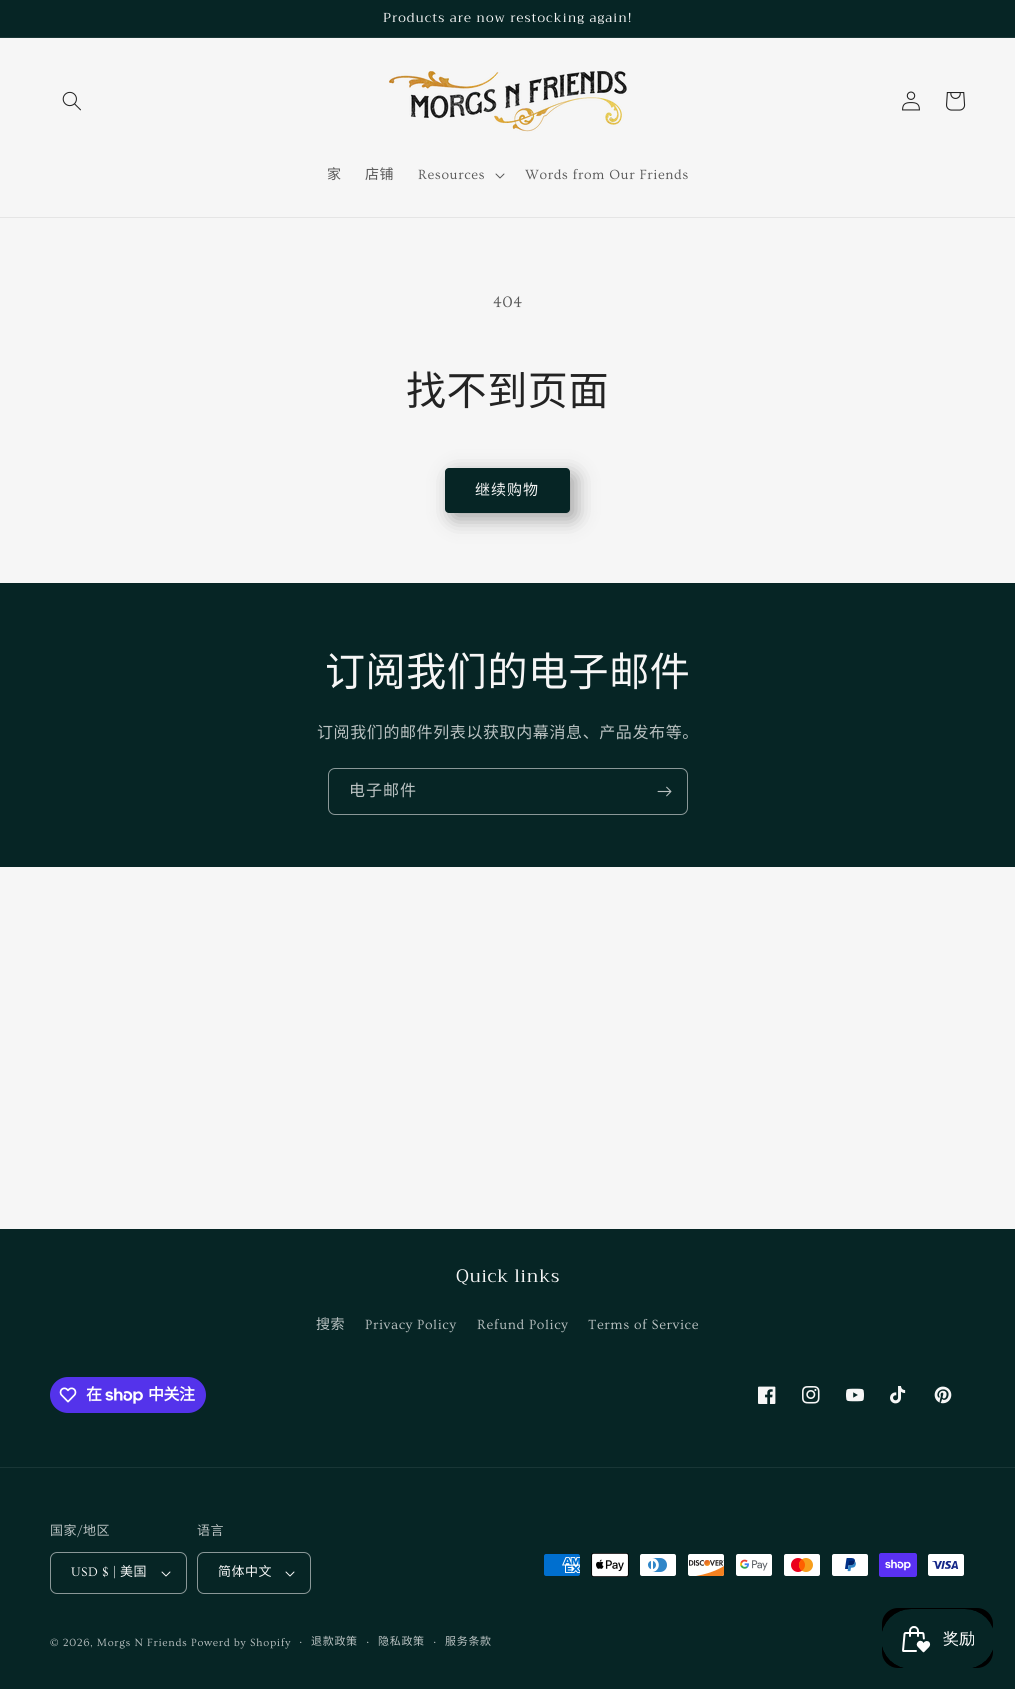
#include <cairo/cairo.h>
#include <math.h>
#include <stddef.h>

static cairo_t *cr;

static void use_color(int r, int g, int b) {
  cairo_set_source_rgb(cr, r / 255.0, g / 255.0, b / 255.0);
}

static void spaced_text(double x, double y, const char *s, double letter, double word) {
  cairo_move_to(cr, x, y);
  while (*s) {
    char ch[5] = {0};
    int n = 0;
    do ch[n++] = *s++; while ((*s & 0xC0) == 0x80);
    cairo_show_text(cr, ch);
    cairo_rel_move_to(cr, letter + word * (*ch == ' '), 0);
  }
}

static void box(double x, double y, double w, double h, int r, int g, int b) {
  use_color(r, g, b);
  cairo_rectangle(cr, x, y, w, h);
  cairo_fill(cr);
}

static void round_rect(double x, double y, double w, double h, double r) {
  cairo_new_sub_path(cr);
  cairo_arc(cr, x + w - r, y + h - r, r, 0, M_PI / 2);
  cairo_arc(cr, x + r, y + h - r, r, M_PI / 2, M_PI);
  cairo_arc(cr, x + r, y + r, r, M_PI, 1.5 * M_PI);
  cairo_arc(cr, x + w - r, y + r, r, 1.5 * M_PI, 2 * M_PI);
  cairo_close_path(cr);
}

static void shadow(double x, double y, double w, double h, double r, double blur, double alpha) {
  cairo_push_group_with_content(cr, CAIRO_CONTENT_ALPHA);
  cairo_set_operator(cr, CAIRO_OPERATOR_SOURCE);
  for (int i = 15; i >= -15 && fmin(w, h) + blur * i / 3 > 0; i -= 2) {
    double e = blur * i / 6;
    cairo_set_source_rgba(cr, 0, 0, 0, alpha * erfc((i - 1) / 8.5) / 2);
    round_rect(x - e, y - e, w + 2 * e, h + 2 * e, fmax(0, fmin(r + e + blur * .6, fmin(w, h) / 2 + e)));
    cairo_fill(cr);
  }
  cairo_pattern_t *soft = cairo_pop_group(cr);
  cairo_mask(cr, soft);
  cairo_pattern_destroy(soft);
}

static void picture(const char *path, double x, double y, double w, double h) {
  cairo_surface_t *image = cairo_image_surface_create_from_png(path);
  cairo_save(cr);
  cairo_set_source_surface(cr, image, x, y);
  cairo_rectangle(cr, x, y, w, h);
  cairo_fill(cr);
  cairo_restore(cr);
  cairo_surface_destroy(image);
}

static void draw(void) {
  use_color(246, 246, 246);
  cairo_paint(cr);
  box(0, 0, 1015, 37, 6, 37, 37);
  box(0, 37, 1015, 1, 25, 54, 54);
  box(0, 217, 1015, 1, 229, 229, 229);
  picture("img_01.png", 62, 91, 19, 20);
  picture("img_02.png", 389, 71, 238, 61);
  picture("img_03.png", 902, 91, 18, 20);
  picture("img_04.png", 946, 92, 20, 19);
  picture("img_05.png", 495, 173, 10, 6);
  use_color(35, 35, 35);
  shadow(451, 474, 125, 45, 4, 10, 0.4);
  use_color(6, 37, 37);
  round_rect(445, 468, 125, 45, 4);
  cairo_fill(cr);
  box(0, 583, 1015, 284, 6, 37, 37);
  round_rect(328.5, 768.5, 359, 46, 6.5);
  use_color(138, 152, 152);
  cairo_set_line_width(cr, 1);
  cairo_stroke(cr);
  picture("img_06.png", 657, 786, 15, 11);
  box(0, 1229, 1015, 460, 6, 37, 37);
  use_color(84, 51, 235);
  round_rect(50, 1377, 156, 36, 18);
  cairo_fill(cr);
  picture("img_07.png", 59, 1387, 18, 16);
  picture("img_08.png", 105, 1388, 38, 16);
  picture("img_09.png", 758, 1386, 18, 18);
  picture("img_10.png", 802, 1386, 18, 18);
  picture("img_11.png", 846, 1388, 18, 14);
  picture("img_12.png", 890, 1386, 16, 18);
  picture("img_13.png", 934, 1386, 18, 18);
  box(0, 1467, 1015, 1, 25, 54, 54);
  picture("img_14.png", 161, 1571, 10, 6);
  round_rect(50.5, 1552.5, 136, 41, 6.5);
  use_color(138, 152, 152);
  cairo_stroke(cr);
  picture("img_14.png", 285, 1571, 10, 6);
  round_rect(197.5, 1552.5, 113, 41, 6.5);
  cairo_stroke(cr);
  picture("img_15.png", 544, 1554, 36, 22);
  picture("img_16.png", 591, 1553, 38, 24);
  picture("img_17.png", 640, 1554, 36, 22);
  picture("img_18.png", 688, 1554, 37, 22);
  picture("img_19.png", 736, 1554, 36, 22);
  picture("img_20.png", 784, 1554, 36, 22);
  picture("img_21.png", 832, 1554, 36, 22);
  picture("img_22.png", 879, 1553, 38, 24);
  picture("img_23.png", 928, 1554, 36, 22);
  use_color(0, 0, 0);
  round_rect(882, 1608, 111, 60, 16);
  cairo_fill(cr);
  picture("img_24.png", 882, 1609, 111, 59);
  cairo_select_font_face(cr, "Trirong", CAIRO_FONT_SLANT_NORMAL, CAIRO_FONT_WEIGHT_NORMAL);
  cairo_set_font_size(cr, 13);
  use_color(246, 246, 246);
  spaced_text(383, 22, "Products are now restocking again!", 1, 0);
  cairo_select_font_face(cr, "Noto Sans CJK SC", CAIRO_FONT_SLANT_NORMAL, CAIRO_FONT_WEIGHT_NORMAL);
  cairo_set_font_size(cr, 14);
  use_color(88, 88, 88);
  spaced_text(327, 179, "家", 0.6, 0);
  spaced_text(365, 179, "店铺", 0.6, 0);
  cairo_select_font_face(cr, "Ovo", CAIRO_FONT_SLANT_NORMAL, CAIRO_FONT_WEIGHT_NORMAL);
  spaced_text(418, 179, "Resources", 0.6, 0);
  spaced_text(525, 179, "Words from Our Friends", 0.6, 0);
  cairo_set_font_size(cr, 16);
  spaced_text(493, 307, "404", 0.6, 0);
  cairo_select_font_face(cr, "Noto Sans CJK SC", CAIRO_FONT_SLANT_NORMAL, CAIRO_FONT_WEIGHT_NORMAL);
  cairo_set_font_size(cr, 40);
  use_color(35, 35, 35);
  spaced_text(406, 405, "找不到页面", 0.6, 0);
  cairo_set_font_size(cr, 15);
  use_color(246, 246, 246);
  spaced_text(475, 495, "继续购物", 1, 0);
  cairo_set_font_size(cr, 40);
  spaced_text(325, 686, "订阅我们的电子邮件", 0.6, 0);
  cairo_set_font_size(cr, 16);
  use_color(186, 194, 194);
  spaced_text(317, 738, "订阅我们的邮件列表以获取内幕消息、产品发布等。", 0.6, 0);
  spaced_text(349, 796, "电子邮件", 1, 0);
  cairo_select_font_face(cr, "Trirong", CAIRO_FONT_SLANT_NORMAL, CAIRO_FONT_WEIGHT_NORMAL);
  cairo_set_font_size(cr, 18);
  use_color(246, 246, 246);
  spaced_text(456, 1282, "Quick links", 0.6, 0);
  cairo_select_font_face(cr, "Noto Sans CJK SC", CAIRO_FONT_SLANT_NORMAL, CAIRO_FONT_WEIGHT_NORMAL);
  cairo_set_font_size(cr, 14);
  use_color(186, 194, 194);
  spaced_text(316, 1329, "搜索", 0.6, 0);
  cairo_select_font_face(cr, "Ovo", CAIRO_FONT_SLANT_NORMAL, CAIRO_FONT_WEIGHT_NORMAL);
  spaced_text(365, 1329, "Privacy Policy", 0.6, 0);
  spaced_text(477, 1329, "Refund Policy", 0.6, 0);
  spaced_text(588, 1329, "Terms of Service", 0.6, 0);
  cairo_select_font_face(cr, "Noto Sans CJK SC", CAIRO_FONT_SLANT_NORMAL, CAIRO_FONT_WEIGHT_BOLD);
  cairo_set_font_size(cr, 16);
  use_color(255, 255, 255);
  spaced_text(86, 1400, "在", -0.5, 0);
  spaced_text(148, 1400, "中关注", -0.5, 0);
  cairo_select_font_face(cr, "Noto Sans CJK SC", CAIRO_FONT_SLANT_NORMAL, CAIRO_FONT_WEIGHT_NORMAL);
  cairo_set_font_size(cr, 13);
  use_color(186, 194, 194);
  spaced_text(50, 1535, "国家", 0.5, 0);
  cairo_select_font_face(cr, "Ovo", CAIRO_FONT_SLANT_NORMAL, CAIRO_FONT_WEIGHT_NORMAL);
  spaced_text(77, 1535, "/", 0.5, 0);
  cairo_select_font_face(cr, "Noto Sans CJK SC", CAIRO_FONT_SLANT_NORMAL, CAIRO_FONT_WEIGHT_NORMAL);
  spaced_text(83, 1535, "地区", 0.5, 0);
  cairo_select_font_face(cr, "Ovo", CAIRO_FONT_SLANT_NORMAL, CAIRO_FONT_WEIGHT_NORMAL);
  use_color(246, 246, 246);
  spaced_text(71, 1576, "USD $ |", 0.5, 0);
  cairo_select_font_face(cr, "Noto Sans CJK SC", CAIRO_FONT_SLANT_NORMAL, CAIRO_FONT_WEIGHT_NORMAL);
  spaced_text(120, 1576, "美国", 0.5, 0);
  use_color(186, 194, 194);
  spaced_text(197, 1535, "语言", 0.5, 0);
  use_color(246, 246, 246);
  spaced_text(218, 1576, "简体中文", 0.5, 0);
  cairo_select_font_face(cr, "Ovo", CAIRO_FONT_SLANT_NORMAL, CAIRO_FONT_WEIGHT_NORMAL);
  cairo_set_font_size(cr, 11);
  use_color(186, 194, 194);
  spaced_text(50, 1646, "© 2026, Morgs N Friends Powerd by Shopify", 0.7, 0);
  cairo_set_font_size(cr, 12);
  spaced_text(299, 1646, "·", 0.7, 0);
  cairo_select_font_face(cr, "Noto Sans CJK SC", CAIRO_FONT_SLANT_NORMAL, CAIRO_FONT_WEIGHT_NORMAL);
  cairo_set_font_size(cr, 11);
  spaced_text(311, 1645, "退款政策", 0.7, 0);
  cairo_select_font_face(cr, "Ovo", CAIRO_FONT_SLANT_NORMAL, CAIRO_FONT_WEIGHT_NORMAL);
  cairo_set_font_size(cr, 12);
  spaced_text(366, 1646, "·", 0.7, 0);
  cairo_select_font_face(cr, "Noto Sans CJK SC", CAIRO_FONT_SLANT_NORMAL, CAIRO_FONT_WEIGHT_NORMAL);
  cairo_set_font_size(cr, 11);
  spaced_text(378, 1645, "隐私政策", 0.7, 0);
  cairo_select_font_face(cr, "Ovo", CAIRO_FONT_SLANT_NORMAL, CAIRO_FONT_WEIGHT_NORMAL);
  cairo_set_font_size(cr, 12);
  spaced_text(433, 1646, "·", 0.7, 0);
  cairo_select_font_face(cr, "Noto Sans CJK SC", CAIRO_FONT_SLANT_NORMAL, CAIRO_FONT_WEIGHT_NORMAL);
  cairo_set_font_size(cr, 11);
  spaced_text(445, 1645, "服务条款", 0.7, 0);
}

int main(void) {
  cairo_surface_t *surface = cairo_image_surface_create(CAIRO_FORMAT_RGB24, 1015, 1689);
  cr = cairo_create(surface);
  cairo_font_options_t *options = cairo_font_options_create();
  cairo_font_options_set_hint_metrics(options, CAIRO_HINT_METRICS_OFF);
  cairo_font_options_set_hint_style(options, CAIRO_HINT_STYLE_NONE);
  cairo_set_font_options(cr, options);
  cairo_set_miter_limit(cr, 4);
  draw();
  cairo_surface_write_to_png(surface, "out.png");
  cairo_font_options_destroy(options);
  cairo_destroy(cr);
  cairo_surface_destroy(surface);
  return 0;
}
